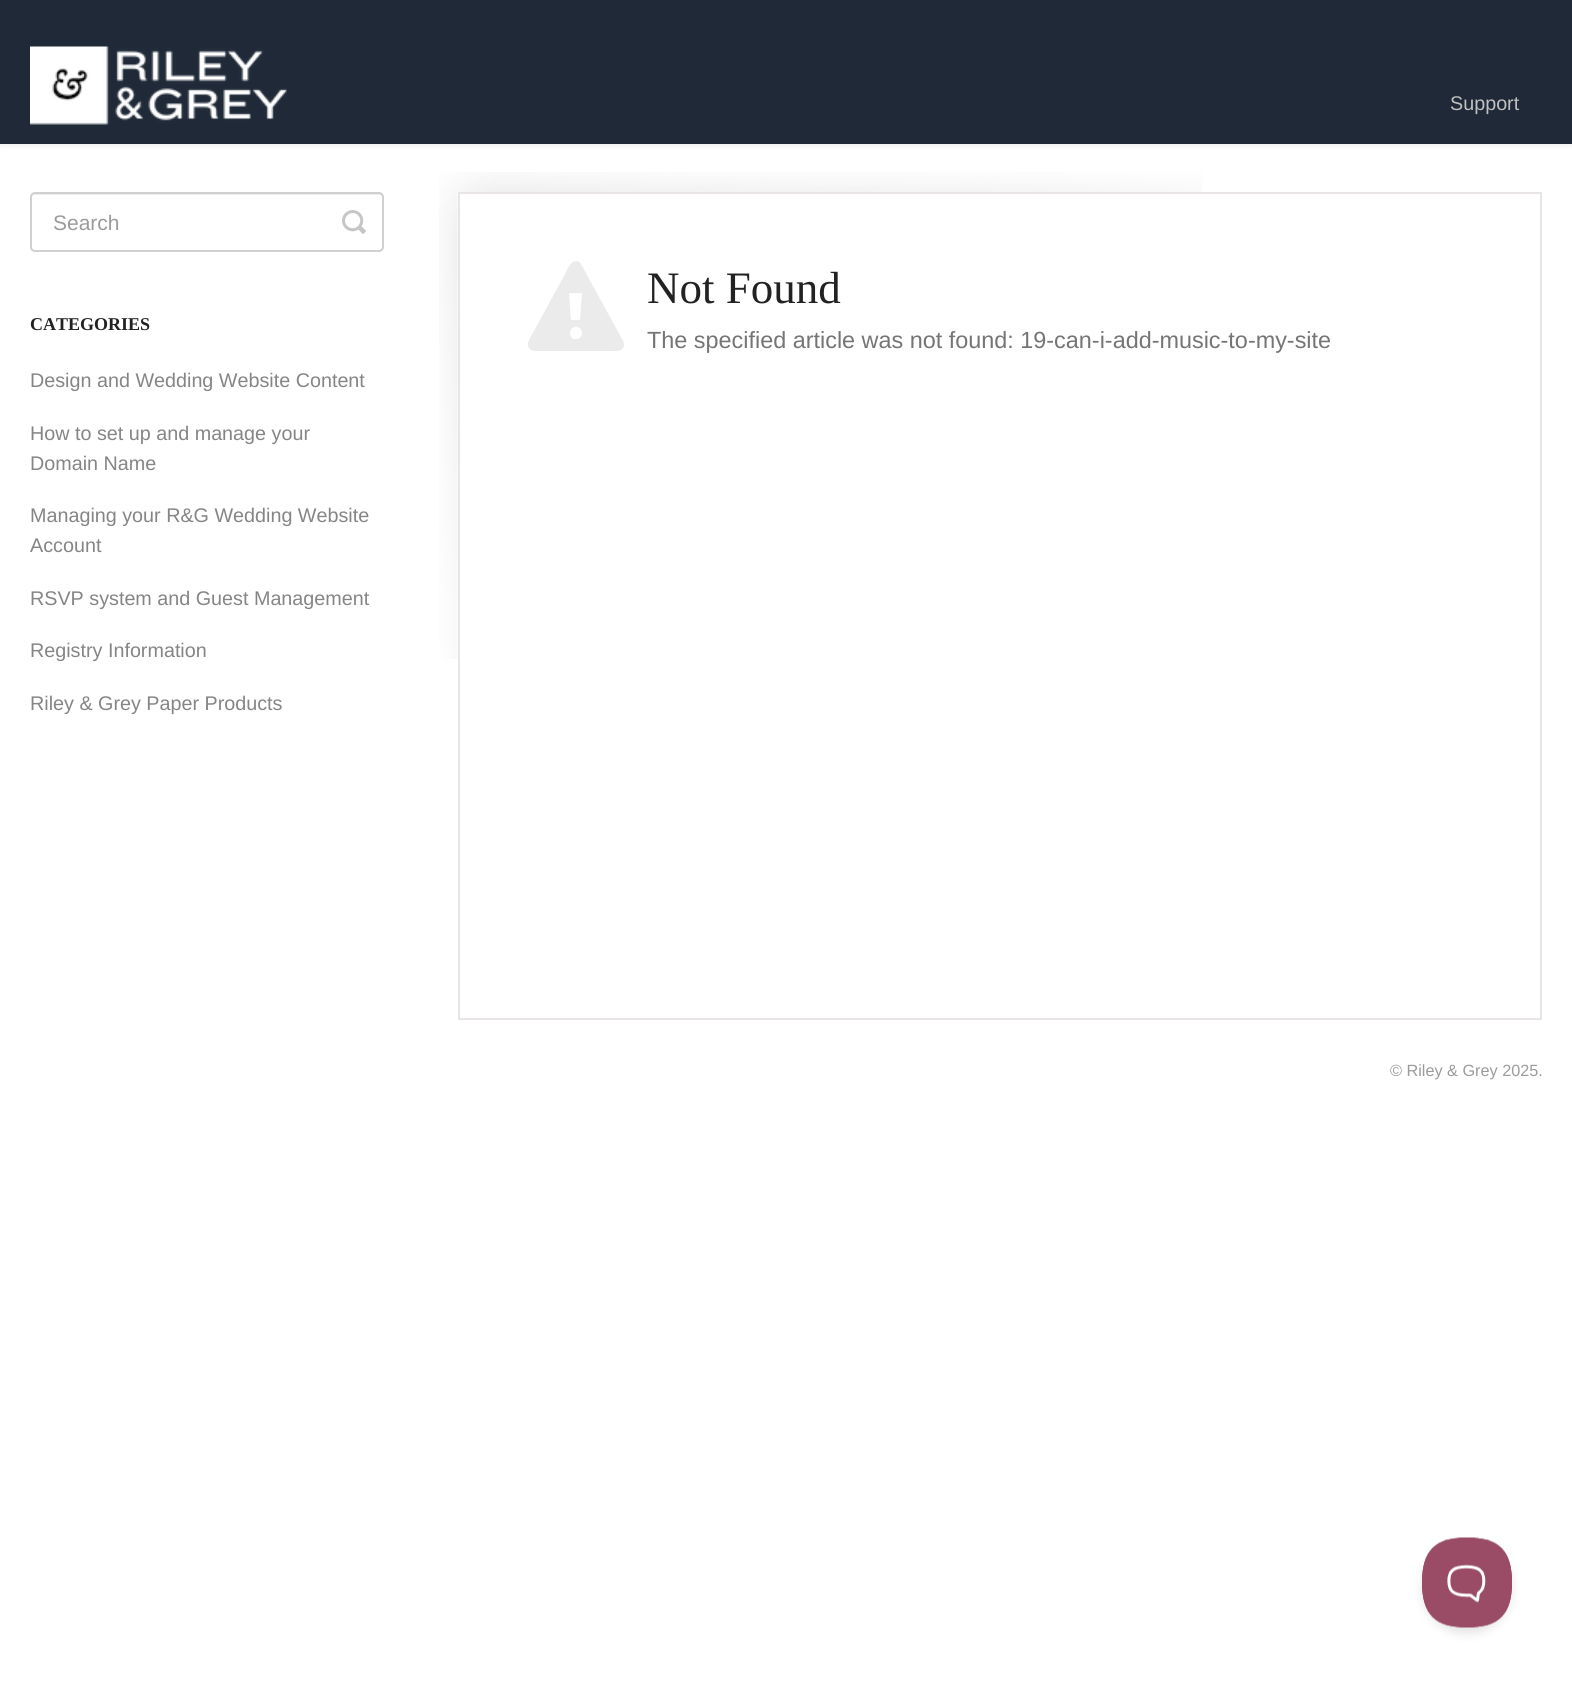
#include <cairo/cairo.h>
#include <math.h>
#include <stddef.h>

static cairo_t *cr;

static void use_color(int r, int g, int b) {
  cairo_set_source_rgb(cr, r / 255.0, g / 255.0, b / 255.0);
}

static void text(double x, double y, const char *s, const char *family, double size, int italic, int bold, int r, int g, int b) {
  cairo_select_font_face(cr, family, italic ? CAIRO_FONT_SLANT_ITALIC : CAIRO_FONT_SLANT_NORMAL,
    bold ? CAIRO_FONT_WEIGHT_BOLD : CAIRO_FONT_WEIGHT_NORMAL);
  cairo_set_font_size(cr, size);
  use_color(r, g, b);
  cairo_move_to(cr, x, y);
  cairo_show_text(cr, s);
}

static void box(double x, double y, double w, double h, int r, int g, int b) {
  use_color(r, g, b);
  cairo_rectangle(cr, x, y, w, h);
  cairo_fill(cr);
}

static void round_rect(double x, double y, double w, double h, double r) {
  cairo_new_sub_path(cr);
  cairo_arc(cr, x + w - r, y + h - r, r, 0, M_PI / 2);
  cairo_arc(cr, x + r, y + h - r, r, M_PI / 2, M_PI);
  cairo_arc(cr, x + r, y + r, r, M_PI, 1.5 * M_PI);
  cairo_arc(cr, x + w - r, y + r, r, 1.5 * M_PI, 2 * M_PI);
  cairo_close_path(cr);
}

static void shadow(double x, double y, double w, double h, double r, double blur, double alpha) {
  cairo_push_group_with_content(cr, CAIRO_CONTENT_ALPHA);
  cairo_set_operator(cr, CAIRO_OPERATOR_SOURCE);
  for (int i = 15; i >= -15 && fmin(w, h) + blur * i / 3 > 0; i -= 2) {
    double e = blur * i / 6;
    cairo_set_source_rgba(cr, 0, 0, 0, alpha * erfc((i - 1) / 8.5) / 2);
    round_rect(x - e, y - e, w + 2 * e, h + 2 * e, fmax(0, fmin(r + e + blur * .6, fmin(w, h) / 2 + e)));
    cairo_fill(cr);
  }
  cairo_pattern_t *soft = cairo_pop_group(cr);
  cairo_mask(cr, soft);
  cairo_pattern_destroy(soft);
}

static void picture(const char *path, double x, double y, double w, double h) {
  cairo_surface_t *image = cairo_image_surface_create_from_png(path);
  cairo_save(cr);
  cairo_set_source_surface(cr, image, x, y);
  cairo_rectangle(cr, x, y, w, h);
  cairo_fill(cr);
  cairo_restore(cr);
  cairo_surface_destroy(image);
}

static void draw(void) {
  use_color(255, 255, 255);
  cairo_paint(cr);
  use_color(0, 0, 0);
  shadow(0, 2, 1572, 144, 0, 3, 0.07);
  box(0, 0, 1572, 144, 31, 41, 55);
  picture("img_01.png", 30, 46, 257, 79);
  use_color(236, 236, 236);
  cairo_new_path(cr);
  cairo_move_to(cr, 34, 195);
  cairo_line_to(cr, 380, 195);
  cairo_curve_to(cr, 381, 195, 382, 196, 382, 198);
  cairo_line_to(cr, 382, 250);
  cairo_curve_to(cr, 383, 250, 383, 249, 383, 248);
  cairo_line_to(cr, 383, 197);
  cairo_curve_to(cr, 383, 195, 382, 194, 380, 194);
  cairo_line_to(cr, 35, 194);
  cairo_curve_to(cr, 33, 194, 32, 195, 32, 197);
  cairo_line_to(cr, 32, 198);
  cairo_curve_to(cr, 32, 196, 33, 195, 34, 195);
  cairo_close_path(cr);
  cairo_fill(cr);
  round_rect(31, 193, 352, 58, 4);
  use_color(208, 208, 208);
  cairo_stroke(cr);
  picture("img_02.png", 342, 210, 24, 24);
  picture("img_03.png", 439, 172, 763, 487);
  cairo_rectangle(cr, 459, 193, 1082, 826);
  use_color(233, 229, 229);
  cairo_stroke(cr);
  use_color(235, 235, 235);
  cairo_new_path(cr);
  cairo_move_to(cr, 622, 339);
  cairo_line_to(cr, 581, 264);
  cairo_line_to(cr, 579, 262);
  cairo_curve_to(cr, 571, 258, 567, 270, 565, 274);
  cairo_line_to(cr, 534, 331);
  cairo_curve_to(cr, 531, 336, 522, 348, 534, 351);
  cairo_line_to(cr, 611, 351);
  cairo_curve_to(cr, 616, 351, 622, 352, 624, 346);
  cairo_curve_to(cr, 624, 344, 624, 341, 622, 339);
  cairo_close_path(cr);
  cairo_move_to(cr, 582, 293);
  cairo_line_to(cr, 580, 320);
  cairo_line_to(cr, 571, 320);
  cairo_line_to(cr, 569, 293);
  cairo_close_path(cr);
  cairo_move_to(cr, 576, 339);
  cairo_curve_to(cr, 568, 340, 568, 327, 576, 327);
  cairo_curve_to(cr, 584, 327, 584, 339, 576, 339);
  cairo_close_path(cr);
  cairo_fill(cr);
  use_color(0, 0, 0);
  shadow(1422, 1544, 90, 90, 45, 5, 0.1);
  picture("img_04.png", 1422, 1537, 90, 91);
  text(1450, 110, "Support", "Liberation Sans", 19.75, 0, 0, 192, 192, 192);
  text(53, 230, "Search", "Liberation Sans", 21, 0, 0, 155, 155, 155);
  text(30, 330, "CATEGORIES", "Liberation Serif", 18, 0, 1, 34, 34, 34);
  text(30, 387, "Design and Wedding Website Content", "Liberation Sans", 19.75, 0, 0, 133, 133, 133);
  text(30, 440, "How to set up and manage your", "Liberation Sans", 19.75, 0, 0, 133, 133, 133);
  text(30, 470, "Domain Name", "Liberation Sans", 19.75, 0, 0, 133, 133, 133);
  text(30, 522, "Managing your R&G Wedding Website", "Liberation Sans", 19.75, 0, 0, 133, 133, 133);
  text(30, 552, "Account", "Liberation Sans", 19.75, 0, 0, 133, 133, 133);
  text(30, 605, "RSVP system and Guest Management", "Liberation Sans", 19.75, 0, 0, 133, 133, 133);
  text(30, 657, "Registry Information", "Liberation Sans", 19.75, 0, 0, 133, 133, 133);
  text(30, 710, "Riley & Grey Paper Products", "Liberation Sans", 19.75, 0, 0, 133, 133, 133);
  text(647, 303, "Not Found", "Liberation Serif", 45, 0, 0, 34, 34, 34);
  text(647, 348, "The specified article was not found: 19-can-i-add-music-to-my-site", "Liberation Sans", 23.4, 0, 0, 117, 117, 117);
  text(1390, 1076, "© Riley & Grey 2025.", "Liberation Sans", 16.25, 0, 0, 155, 155, 155);
}

int main(void) {
  cairo_surface_t *surface = cairo_image_surface_create(CAIRO_FORMAT_RGB24, 1572, 1687);
  cr = cairo_create(surface);
  cairo_font_options_t *options = cairo_font_options_create();
  cairo_font_options_set_hint_metrics(options, CAIRO_HINT_METRICS_OFF);
  cairo_font_options_set_hint_style(options, CAIRO_HINT_STYLE_NONE);
  cairo_set_font_options(cr, options);
  cairo_set_miter_limit(cr, 4);
  draw();
  cairo_surface_write_to_png(surface, "out.png");
  cairo_font_options_destroy(options);
  cairo_destroy(cr);
  cairo_surface_destroy(surface);
  return 0;
}
